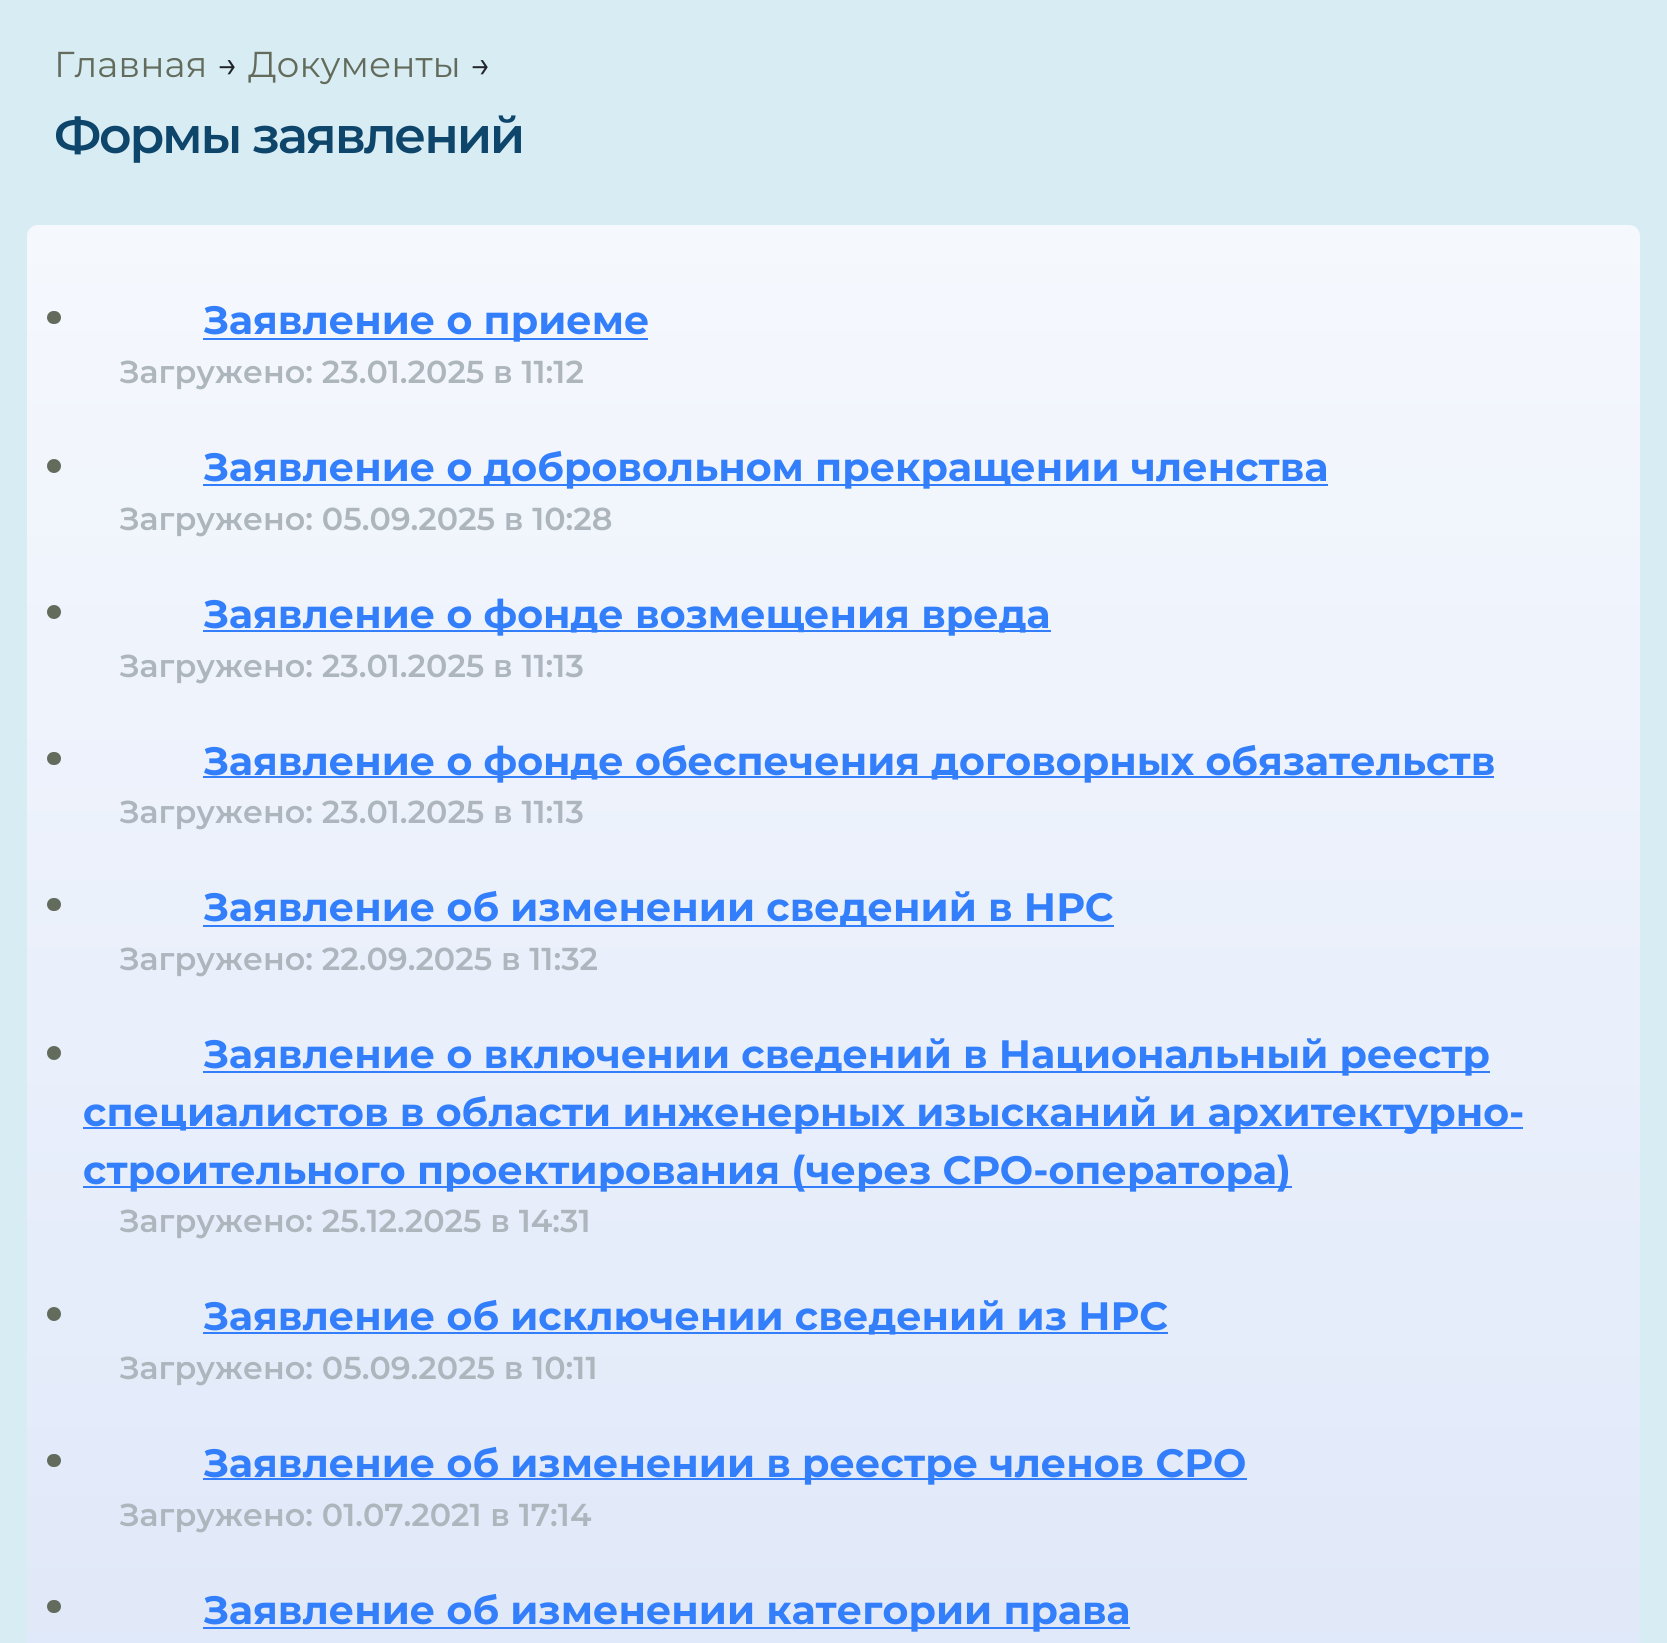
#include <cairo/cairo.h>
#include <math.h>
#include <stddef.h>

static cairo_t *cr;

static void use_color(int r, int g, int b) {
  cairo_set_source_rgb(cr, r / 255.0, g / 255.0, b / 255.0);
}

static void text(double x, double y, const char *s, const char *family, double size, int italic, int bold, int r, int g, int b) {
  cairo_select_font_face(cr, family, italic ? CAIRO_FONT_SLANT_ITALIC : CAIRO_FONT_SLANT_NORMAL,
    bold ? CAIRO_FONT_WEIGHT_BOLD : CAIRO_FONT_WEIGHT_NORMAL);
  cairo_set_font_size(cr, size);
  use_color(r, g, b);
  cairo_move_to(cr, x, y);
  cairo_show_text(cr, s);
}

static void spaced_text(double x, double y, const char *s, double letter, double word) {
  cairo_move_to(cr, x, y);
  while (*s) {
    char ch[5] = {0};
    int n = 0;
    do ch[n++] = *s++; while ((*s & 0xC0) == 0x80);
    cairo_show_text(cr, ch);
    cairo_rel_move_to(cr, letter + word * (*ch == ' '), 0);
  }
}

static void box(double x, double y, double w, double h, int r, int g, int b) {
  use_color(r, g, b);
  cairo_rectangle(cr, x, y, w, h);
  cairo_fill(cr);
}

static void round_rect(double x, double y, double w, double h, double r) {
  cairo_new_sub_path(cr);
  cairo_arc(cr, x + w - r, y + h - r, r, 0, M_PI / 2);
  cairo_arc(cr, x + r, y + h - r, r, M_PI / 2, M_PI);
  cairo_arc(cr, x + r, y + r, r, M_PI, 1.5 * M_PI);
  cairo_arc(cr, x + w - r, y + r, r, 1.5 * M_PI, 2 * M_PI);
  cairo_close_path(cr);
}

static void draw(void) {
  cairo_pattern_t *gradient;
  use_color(216, 236, 243);
  cairo_paint(cr);
  gradient = cairo_pattern_create_linear(834, 225, 834, 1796);
  cairo_pattern_add_color_stop_rgba(gradient, 0, 0.961, 0.973, 0.992, 1);
  cairo_pattern_add_color_stop_rgba(gradient, 1, 0.871, 0.906, 0.976, 1);
  cairo_set_source(cr, gradient);
  cairo_pattern_destroy(gradient);
  round_rect(27, 225, 1613, 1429, 11);
  cairo_fill(cr);
  use_color(99, 108, 92);
  round_rect(47, 311, 14, 13, 6.5);
  cairo_fill(cr);
  box(203, 338, 445, 2, 50, 126, 251);
  use_color(99, 108, 92);
  cairo_arc(cr, 54, 466, 7, 0, 2 * M_PI);
  cairo_fill(cr);
  box(203, 484, 1125, 2, 50, 126, 251);
  use_color(99, 108, 92);
  cairo_arc(cr, 54, 612, 7, 0, 2 * M_PI);
  cairo_fill(cr);
  box(203, 630, 848, 2, 50, 126, 251);
  use_color(99, 108, 92);
  round_rect(47, 752, 14, 13, 6.5);
  cairo_fill(cr);
  box(203, 776, 1291, 2, 50, 126, 251);
  use_color(99, 108, 92);
  round_rect(47, 898, 14, 13, 6.5);
  cairo_fill(cr);
  box(203, 925, 911, 2, 50, 126, 251);
  use_color(99, 108, 92);
  cairo_arc(cr, 54, 1053, 7, 0, 2 * M_PI);
  cairo_fill(cr);
  box(203, 1071, 1287, 2, 50, 126, 251);
  box(83, 1127, 1440, 2, 50, 126, 251);
  box(83, 1186, 1209, 2, 50, 126, 251);
  use_color(99, 108, 92);
  cairo_arc(cr, 54, 1314, 7, 0, 2 * M_PI);
  cairo_fill(cr);
  box(203, 1332, 965, 2, 50, 126, 251);
  use_color(99, 108, 92);
  round_rect(47, 1454, 14, 13, 6.5);
  cairo_fill(cr);
  box(203, 1478, 1044, 2, 50, 126, 251);
  use_color(99, 108, 92);
  round_rect(47, 1600, 14, 13, 6.5);
  cairo_fill(cr);
  box(203, 1627, 927, 2, 50, 126, 251);
  text(54, 77, "Главная", "Montserrat", 36, 0, 0, 99, 108, 92);
  text(217, 77, "→", "Montserrat", 36, 0, 0, 33, 37, 41);
  text(248, 77, "Документы", "Montserrat", 36, 0, 0, 99, 108, 92);
  text(470, 77, "→", "Montserrat", 36, 0, 0, 33, 37, 41);
  cairo_select_font_face(cr, "Montserrat SemiBold", CAIRO_FONT_SLANT_NORMAL, CAIRO_FONT_WEIGHT_NORMAL);
  cairo_set_font_size(cr, 50.5);
  use_color(14, 69, 107);
  spaced_text(54, 153, "Формы заявлений", -2.25, 0);
  text(203, 334, "Заявление о приеме", "Montserrat", 39.6, 0, 1, 50, 126, 251);
  text(119, 383, "Загружено: 23.01.2025 в 11:12", "Montserrat SemiBold", 31.7, 0, 0, 173, 181, 189);
  text(203, 481, "Заявление о добровольном прекращении членства", "Montserrat", 39.6, 0, 1, 50, 126, 251);
  text(119, 530, "Загружено: 05.09.2025 в 10:28", "Montserrat SemiBold", 31.7, 0, 0, 173, 181, 189);
  text(203, 628, "Заявление о фонде возмещения вреда", "Montserrat", 39.6, 0, 1, 50, 126, 251);
  text(119, 677, "Загружено: 23.01.2025 в 11:13", "Montserrat SemiBold", 31.7, 0, 0, 173, 181, 189);
  text(203, 775, "Заявление о фонде обеспечения договорных обязательств", "Montserrat", 39.6, 0, 1, 50, 126, 251);
  text(119, 823, "Загружено: 23.01.2025 в 11:13", "Montserrat SemiBold", 31.7, 0, 0, 173, 181, 189);
  text(203, 921, "Заявление об изменении сведений в НРС", "Montserrat", 39.6, 0, 1, 50, 126, 251);
  text(119, 970, "Загружено: 22.09.2025 в 11:32", "Montserrat SemiBold", 31.7, 0, 0, 173, 181, 189);
  text(203, 1068, "Заявление о включении сведений в Национальный реестр", "Montserrat", 39.6, 0, 1, 50, 126, 251);
  text(83, 1126, "специалистов в области инженерных изысканий и архитектурно-", "Montserrat", 39.6, 0, 1, 50, 126, 251);
  text(83, 1184, "строительного проектирования (через СРО-оператора)", "Montserrat", 39.6, 0, 1, 50, 126, 251);
  text(119, 1232, "Загружено: 25.12.2025 в 14:31", "Montserrat SemiBold", 31.7, 0, 0, 173, 181, 189);
  text(203, 1330, "Заявление об исключении сведений из НРС", "Montserrat", 39.6, 0, 1, 50, 126, 251);
  text(119, 1379, "Загружено: 05.09.2025 в 10:11", "Montserrat SemiBold", 31.7, 0, 0, 173, 181, 189);
  text(203, 1477, "Заявление об изменении в реестре членов СРО", "Montserrat", 39.6, 0, 1, 50, 126, 251);
  text(119, 1526, "Загружено: 01.07.2021 в 17:14", "Montserrat SemiBold", 31.7, 0, 0, 173, 181, 189);
  text(203, 1624, "Заявление об изменении категории права", "Montserrat", 39.6, 0, 1, 50, 126, 251);
}

int main(void) {
  cairo_surface_t *surface = cairo_image_surface_create(CAIRO_FORMAT_RGB24, 1667, 1643);
  cr = cairo_create(surface);
  cairo_font_options_t *options = cairo_font_options_create();
  cairo_font_options_set_hint_metrics(options, CAIRO_HINT_METRICS_OFF);
  cairo_font_options_set_hint_style(options, CAIRO_HINT_STYLE_NONE);
  cairo_set_font_options(cr, options);
  cairo_set_miter_limit(cr, 4);
  draw();
  cairo_surface_write_to_png(surface, "out.png");
  cairo_font_options_destroy(options);
  cairo_destroy(cr);
  cairo_surface_destroy(surface);
  return 0;
}
